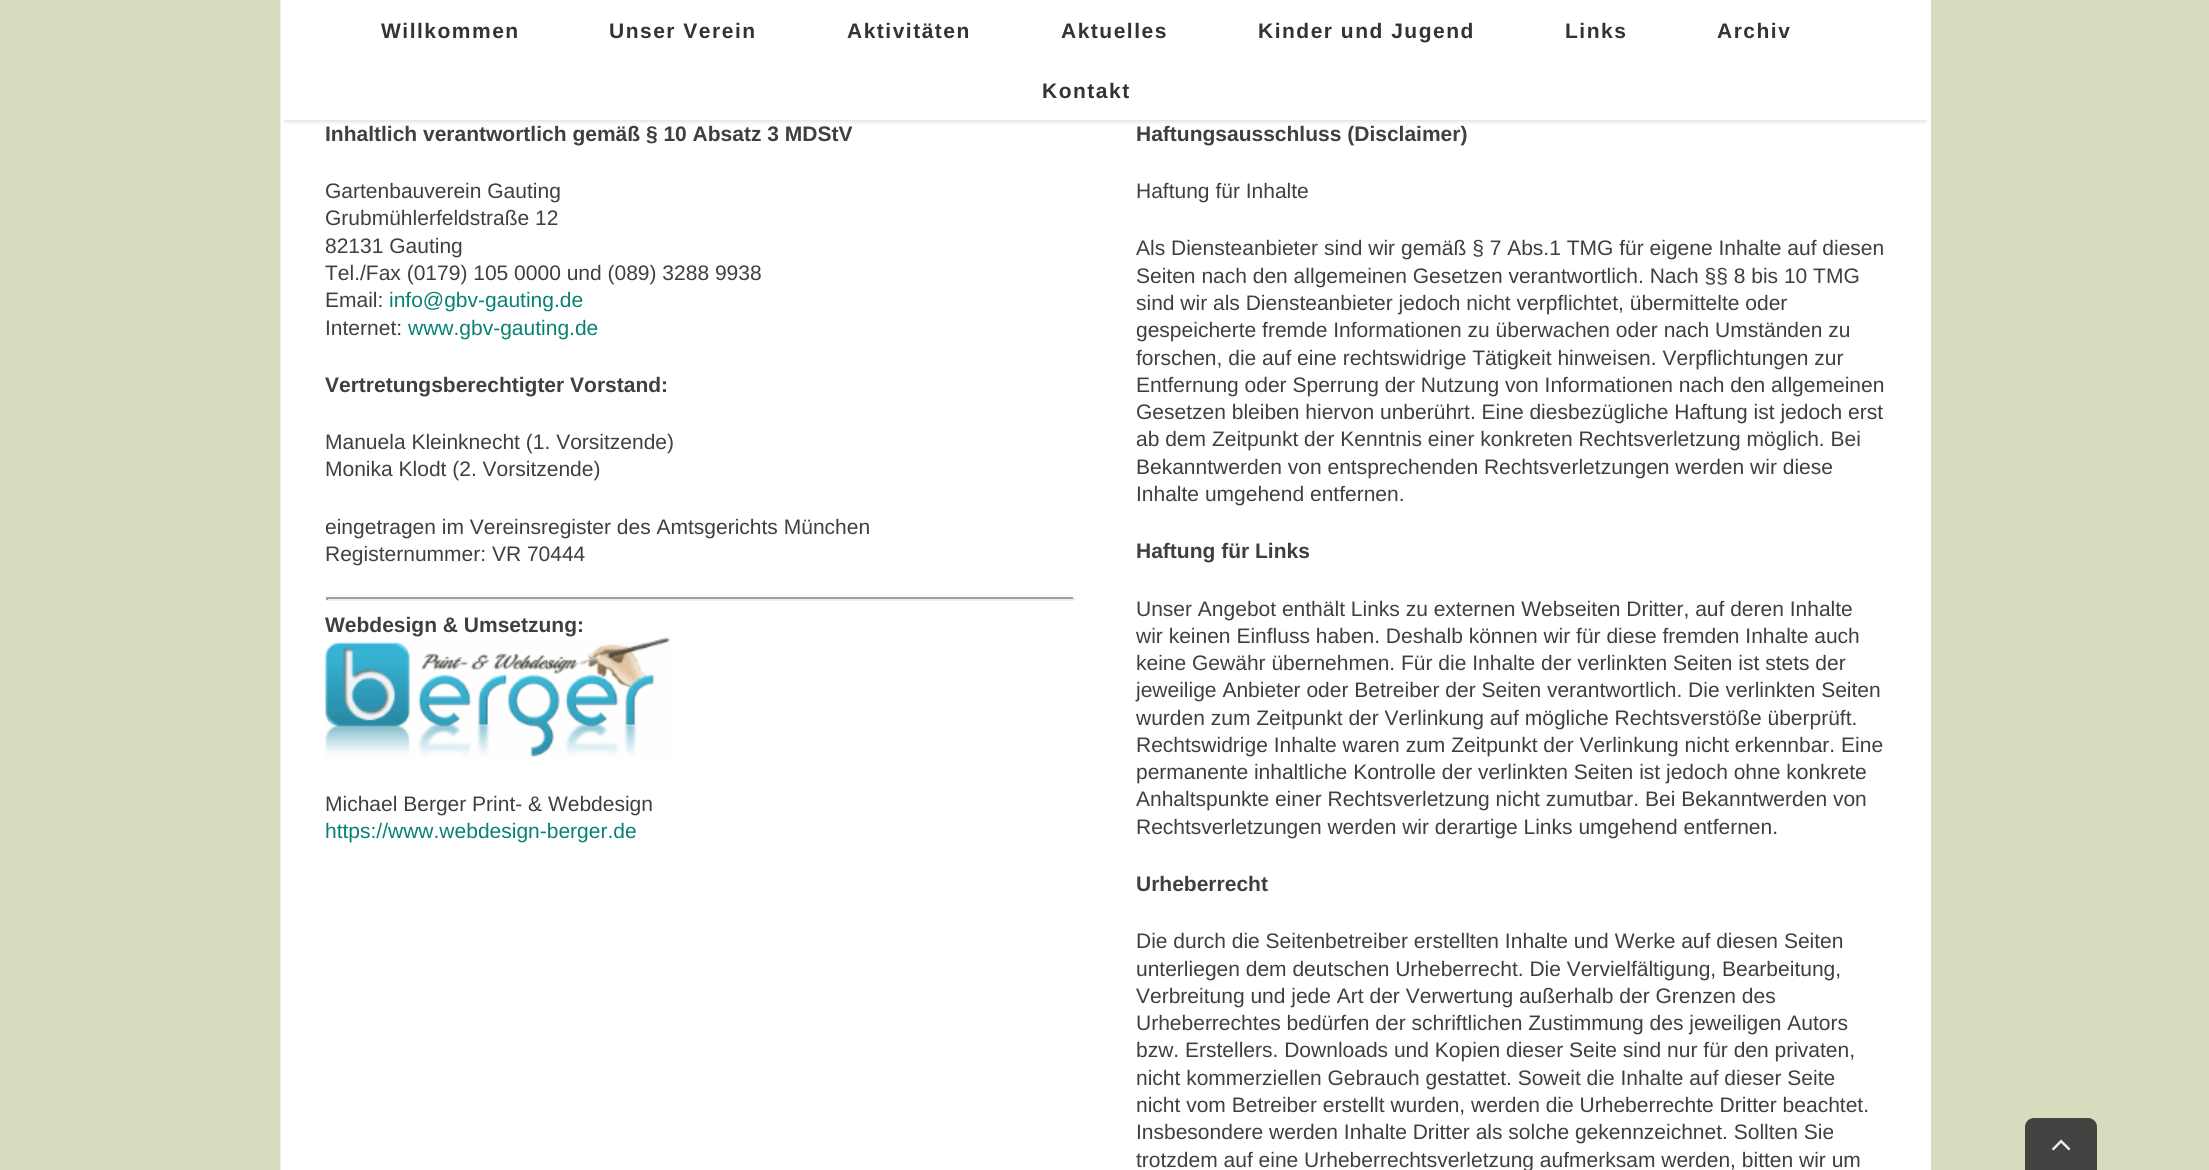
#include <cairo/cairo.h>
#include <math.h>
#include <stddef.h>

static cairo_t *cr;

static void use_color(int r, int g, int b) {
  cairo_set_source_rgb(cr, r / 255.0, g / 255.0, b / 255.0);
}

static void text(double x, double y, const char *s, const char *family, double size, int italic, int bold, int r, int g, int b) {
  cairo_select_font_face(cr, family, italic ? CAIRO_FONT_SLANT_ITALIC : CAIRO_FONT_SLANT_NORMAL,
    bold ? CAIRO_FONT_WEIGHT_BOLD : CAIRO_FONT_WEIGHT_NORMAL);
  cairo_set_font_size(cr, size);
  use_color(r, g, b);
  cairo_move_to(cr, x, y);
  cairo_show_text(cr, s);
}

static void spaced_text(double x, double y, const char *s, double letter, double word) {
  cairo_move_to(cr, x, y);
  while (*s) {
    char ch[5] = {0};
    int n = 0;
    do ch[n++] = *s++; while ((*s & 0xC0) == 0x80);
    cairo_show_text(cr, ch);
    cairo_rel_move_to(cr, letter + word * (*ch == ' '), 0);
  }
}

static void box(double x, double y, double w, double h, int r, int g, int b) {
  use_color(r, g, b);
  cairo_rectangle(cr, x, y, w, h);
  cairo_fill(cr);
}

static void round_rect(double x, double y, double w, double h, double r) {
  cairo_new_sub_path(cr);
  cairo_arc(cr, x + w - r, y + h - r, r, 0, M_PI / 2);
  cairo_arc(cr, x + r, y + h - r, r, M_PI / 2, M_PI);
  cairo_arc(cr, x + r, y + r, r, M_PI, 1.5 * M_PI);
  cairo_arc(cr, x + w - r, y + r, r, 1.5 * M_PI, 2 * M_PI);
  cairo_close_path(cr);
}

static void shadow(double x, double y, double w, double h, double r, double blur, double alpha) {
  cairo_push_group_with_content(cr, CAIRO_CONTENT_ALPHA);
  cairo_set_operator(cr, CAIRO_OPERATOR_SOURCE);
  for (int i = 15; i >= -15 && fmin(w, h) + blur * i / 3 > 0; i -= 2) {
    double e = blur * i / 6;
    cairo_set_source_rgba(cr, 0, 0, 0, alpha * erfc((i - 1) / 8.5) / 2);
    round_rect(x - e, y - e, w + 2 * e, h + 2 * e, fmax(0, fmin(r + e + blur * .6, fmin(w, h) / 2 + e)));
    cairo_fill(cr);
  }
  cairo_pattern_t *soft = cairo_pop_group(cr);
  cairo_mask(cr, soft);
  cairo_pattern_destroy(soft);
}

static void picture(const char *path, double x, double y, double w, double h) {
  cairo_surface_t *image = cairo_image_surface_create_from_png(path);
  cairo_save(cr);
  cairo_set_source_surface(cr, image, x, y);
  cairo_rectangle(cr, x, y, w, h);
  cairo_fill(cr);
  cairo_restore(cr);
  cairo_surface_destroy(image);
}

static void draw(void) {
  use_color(215, 220, 190);
  cairo_paint(cr);
  box(281, 120, 1650, 1050, 255, 255, 255);
  box(280, 0, 1, 1170, 235, 238, 223);
  use_color(0, 0, 0);
  shadow(285, 11, 1641, 111, 0, 2, 0.12);
  box(281, 0, 1650, 120, 255, 255, 255);
  box(326, 597, 748, 2, 159, 159, 159);
  box(1073, 597, 2, 3, 238, 238, 238);
  box(326, 599, 748, 2, 238, 238, 238);
  box(326, 597, 2, 3, 159, 159, 159);
  picture("img_01.png", 325, 637, 346, 121);
  use_color(67, 68, 65);
  cairo_new_path(cr);
  cairo_move_to(cr, 2034, 1118);
  cairo_line_to(cr, 2088, 1118);
  cairo_curve_to(cr, 2093, 1118, 2097, 1122, 2097, 1127);
  cairo_line_to(cr, 2097, 1170);
  cairo_line_to(cr, 2025, 1170);
  cairo_line_to(cr, 2025, 1127);
  cairo_curve_to(cr, 2025, 1122, 2029, 1118, 2034, 1118);
  cairo_close_path(cr);
  cairo_fill(cr);
  picture("img_02.png", 2052, 1139, 19, 12);
  cairo_select_font_face(cr, "Liberation Sans", CAIRO_FONT_SLANT_NORMAL, CAIRO_FONT_WEIGHT_BOLD);
  cairo_set_font_size(cr, 21);
  use_color(51, 51, 51);
  spaced_text(381, 38, "Willkommen", 1.5, 0);
  spaced_text(609, 38, "Unser Verein", 1.5, 0);
  spaced_text(847, 38, "Aktivitäten", 1.5, 0);
  spaced_text(1061, 38, "Aktuelles", 1.5, 0);
  spaced_text(1258, 38, "Kinder und Jugend", 1.5, 0);
  spaced_text(1565, 38, "Links", 1.5, 0);
  spaced_text(1717, 38, "Archiv", 1.5, 0);
  spaced_text(1042, 98, "Kontakt", 1.5, 0);
  text(325, 141, "Inhaltlich verantwortlich gemäß § 10 Absatz 3 MDStV", "Liberation Sans", 21, 0, 1, 63, 63, 63);
  text(325, 198, "Gartenbauverein Gauting", "Liberation Sans", 21, 0, 0, 63, 63, 63);
  text(325, 225, "Grubmühlerfeldstraße 12", "Liberation Sans", 21, 0, 0, 63, 63, 63);
  text(325, 253, "82131 Gauting", "Liberation Sans", 21, 0, 0, 63, 63, 63);
  text(325, 280, "Tel./Fax (0179) 105 0000 und (089) 3288 9938", "Liberation Sans", 21, 0, 0, 63, 63, 63);
  text(325, 307, "Email:", "Liberation Sans", 21, 0, 0, 63, 63, 63);
  text(389, 307, "info@gbv-gauting.de", "Liberation Sans", 21, 0, 0, 7, 129, 114);
  text(325, 335, "Internet:", "Liberation Sans", 21, 0, 0, 63, 63, 63);
  text(408, 335, "www.gbv-gauting.de", "Liberation Sans", 21, 0, 0, 7, 129, 114);
  text(325, 392, "Vertretungsberechtigter Vorstand:", "Liberation Sans", 21, 0, 1, 63, 63, 63);
  text(325, 449, "Manuela Kleinknecht (1. Vorsitzende)", "Liberation Sans", 21, 0, 0, 63, 63, 63);
  text(325, 476, "Monika Klodt (2. Vorsitzende)", "Liberation Sans", 21, 0, 0, 63, 63, 63);
  text(325, 534, "eingetragen im Vereinsregister des Amtsgerichts München", "Liberation Sans", 21, 0, 0, 63, 63, 63);
  text(325, 561, "Registernummer: VR 70444", "Liberation Sans", 21, 0, 0, 63, 63, 63);
  text(325, 632, "Webdesign & Umsetzung:", "Liberation Sans", 21, 0, 1, 63, 63, 63);
  text(325, 811, "Michael Berger Print- & Webdesign", "Liberation Sans", 21, 0, 0, 63, 63, 63);
  text(325, 838, "https://www.webdesign-berger.de", "Liberation Sans", 21, 0, 0, 7, 129, 114);
  text(1136, 141, "Haftungsausschluss (Disclaimer)", "Liberation Sans", 21, 0, 1, 63, 63, 63);
  text(1136, 198, "Haftung für Inhalte", "Liberation Sans", 21, 0, 0, 63, 63, 63);
  text(1136, 255, "Als Diensteanbieter sind wir gemäß § 7 Abs.1 TMG für eigene Inhalte auf diesen", "Liberation Sans", 21, 0, 0, 63, 63, 63);
  text(1136, 283, "Seiten nach den allgemeinen Gesetzen verantwortlich. Nach §§ 8 bis 10 TMG", "Liberation Sans", 21, 0, 0, 63, 63, 63);
  text(1136, 310, "sind wir als Diensteanbieter jedoch nicht verpflichtet, übermittelte oder", "Liberation Sans", 21, 0, 0, 63, 63, 63);
  text(1136, 337, "gespeicherte fremde Informationen zu überwachen oder nach Umständen zu", "Liberation Sans", 21, 0, 0, 63, 63, 63);
  text(1136, 365, "forschen, die auf eine rechtswidrige Tätigkeit hinweisen. Verpflichtungen zur", "Liberation Sans", 21, 0, 0, 63, 63, 63);
  text(1136, 392, "Entfernung oder Sperrung der Nutzung von Informationen nach den allgemeinen", "Liberation Sans", 21, 0, 0, 63, 63, 63);
  text(1136, 419, "Gesetzen bleiben hiervon unberührt. Eine diesbezügliche Haftung ist jedoch erst", "Liberation Sans", 21, 0, 0, 63, 63, 63);
  text(1136, 446, "ab dem Zeitpunkt der Kenntnis einer konkreten Rechtsverletzung möglich. Bei", "Liberation Sans", 21, 0, 0, 63, 63, 63);
  text(1136, 474, "Bekanntwerden von entsprechenden Rechtsverletzungen werden wir diese", "Liberation Sans", 21, 0, 0, 63, 63, 63);
  text(1136, 501, "Inhalte umgehend entfernen.", "Liberation Sans", 21, 0, 0, 63, 63, 63);
  text(1136, 558, "Haftung für Links", "Liberation Sans", 21, 0, 1, 63, 63, 63);
  text(1136, 616, "Unser Angebot enthält Links zu externen Webseiten Dritter, auf deren Inhalte", "Liberation Sans", 21, 0, 0, 63, 63, 63);
  text(1136, 643, "wir keinen Einfluss haben. Deshalb können wir für diese fremden Inhalte auch", "Liberation Sans", 21, 0, 0, 63, 63, 63);
  text(1136, 670, "keine Gewähr übernehmen. Für die Inhalte der verlinkten Seiten ist stets der", "Liberation Sans", 21, 0, 0, 63, 63, 63);
  text(1136, 697, "jeweilige Anbieter oder Betreiber der Seiten verantwortlich. Die verlinkten Seiten", "Liberation Sans", 21, 0, 0, 63, 63, 63);
  text(1136, 725, "wurden zum Zeitpunkt der Verlinkung auf mögliche Rechtsverstöße überprüft.", "Liberation Sans", 21, 0, 0, 63, 63, 63);
  text(1136, 752, "Rechtswidrige Inhalte waren zum Zeitpunkt der Verlinkung nicht erkennbar. Eine", "Liberation Sans", 21, 0, 0, 63, 63, 63);
  text(1136, 779, "permanente inhaltliche Kontrolle der verlinkten Seiten ist jedoch ohne konkrete", "Liberation Sans", 21, 0, 0, 63, 63, 63);
  text(1136, 806, "Anhaltspunkte einer Rechtsverletzung nicht zumutbar. Bei Bekanntwerden von", "Liberation Sans", 21, 0, 0, 63, 63, 63);
  text(1136, 834, "Rechtsverletzungen werden wir derartige Links umgehend entfernen.", "Liberation Sans", 21, 0, 0, 63, 63, 63);
  text(1136, 891, "Urheberrecht", "Liberation Sans", 21, 0, 1, 63, 63, 63);
  text(1136, 948, "Die durch die Seitenbetreiber erstellten Inhalte und Werke auf diesen Seiten", "Liberation Sans", 21, 0, 0, 63, 63, 63);
  text(1136, 976, "unterliegen dem deutschen Urheberrecht. Die Vervielfältigung, Bearbeitung,", "Liberation Sans", 21, 0, 0, 63, 63, 63);
  text(1136, 1003, "Verbreitung und jede Art der Verwertung außerhalb der Grenzen des", "Liberation Sans", 21, 0, 0, 63, 63, 63);
  text(1136, 1030, "Urheberrechtes bedürfen der schriftlichen Zustimmung des jeweiligen Autors", "Liberation Sans", 21, 0, 0, 63, 63, 63);
  text(1136, 1057, "bzw. Erstellers. Downloads und Kopien dieser Seite sind nur für den privaten,", "Liberation Sans", 21, 0, 0, 63, 63, 63);
  text(1136, 1085, "nicht kommerziellen Gebrauch gestattet. Soweit die Inhalte auf dieser Seite", "Liberation Sans", 21, 0, 0, 63, 63, 63);
  text(1136, 1112, "nicht vom Betreiber erstellt wurden, werden die Urheberrechte Dritter beachtet.", "Liberation Sans", 21, 0, 0, 63, 63, 63);
  text(1136, 1139, "Insbesondere werden Inhalte Dritter als solche gekennzeichnet. Sollten Sie", "Liberation Sans", 21, 0, 0, 63, 63, 63);
  text(1136, 1167, "trotzdem auf eine Urheberrechtsverletzung aufmerksam werden, bitten wir um", "Liberation Sans", 21, 0, 0, 63, 63, 63);
}

int main(void) {
  cairo_surface_t *surface = cairo_image_surface_create(CAIRO_FORMAT_RGB24, 2209, 1170);
  cr = cairo_create(surface);
  cairo_font_options_t *options = cairo_font_options_create();
  cairo_font_options_set_hint_metrics(options, CAIRO_HINT_METRICS_OFF);
  cairo_font_options_set_hint_style(options, CAIRO_HINT_STYLE_NONE);
  cairo_set_font_options(cr, options);
  cairo_set_miter_limit(cr, 4);
  draw();
  cairo_surface_write_to_png(surface, "out.png");
  cairo_font_options_destroy(options);
  cairo_destroy(cr);
  cairo_surface_destroy(surface);
  return 0;
}
